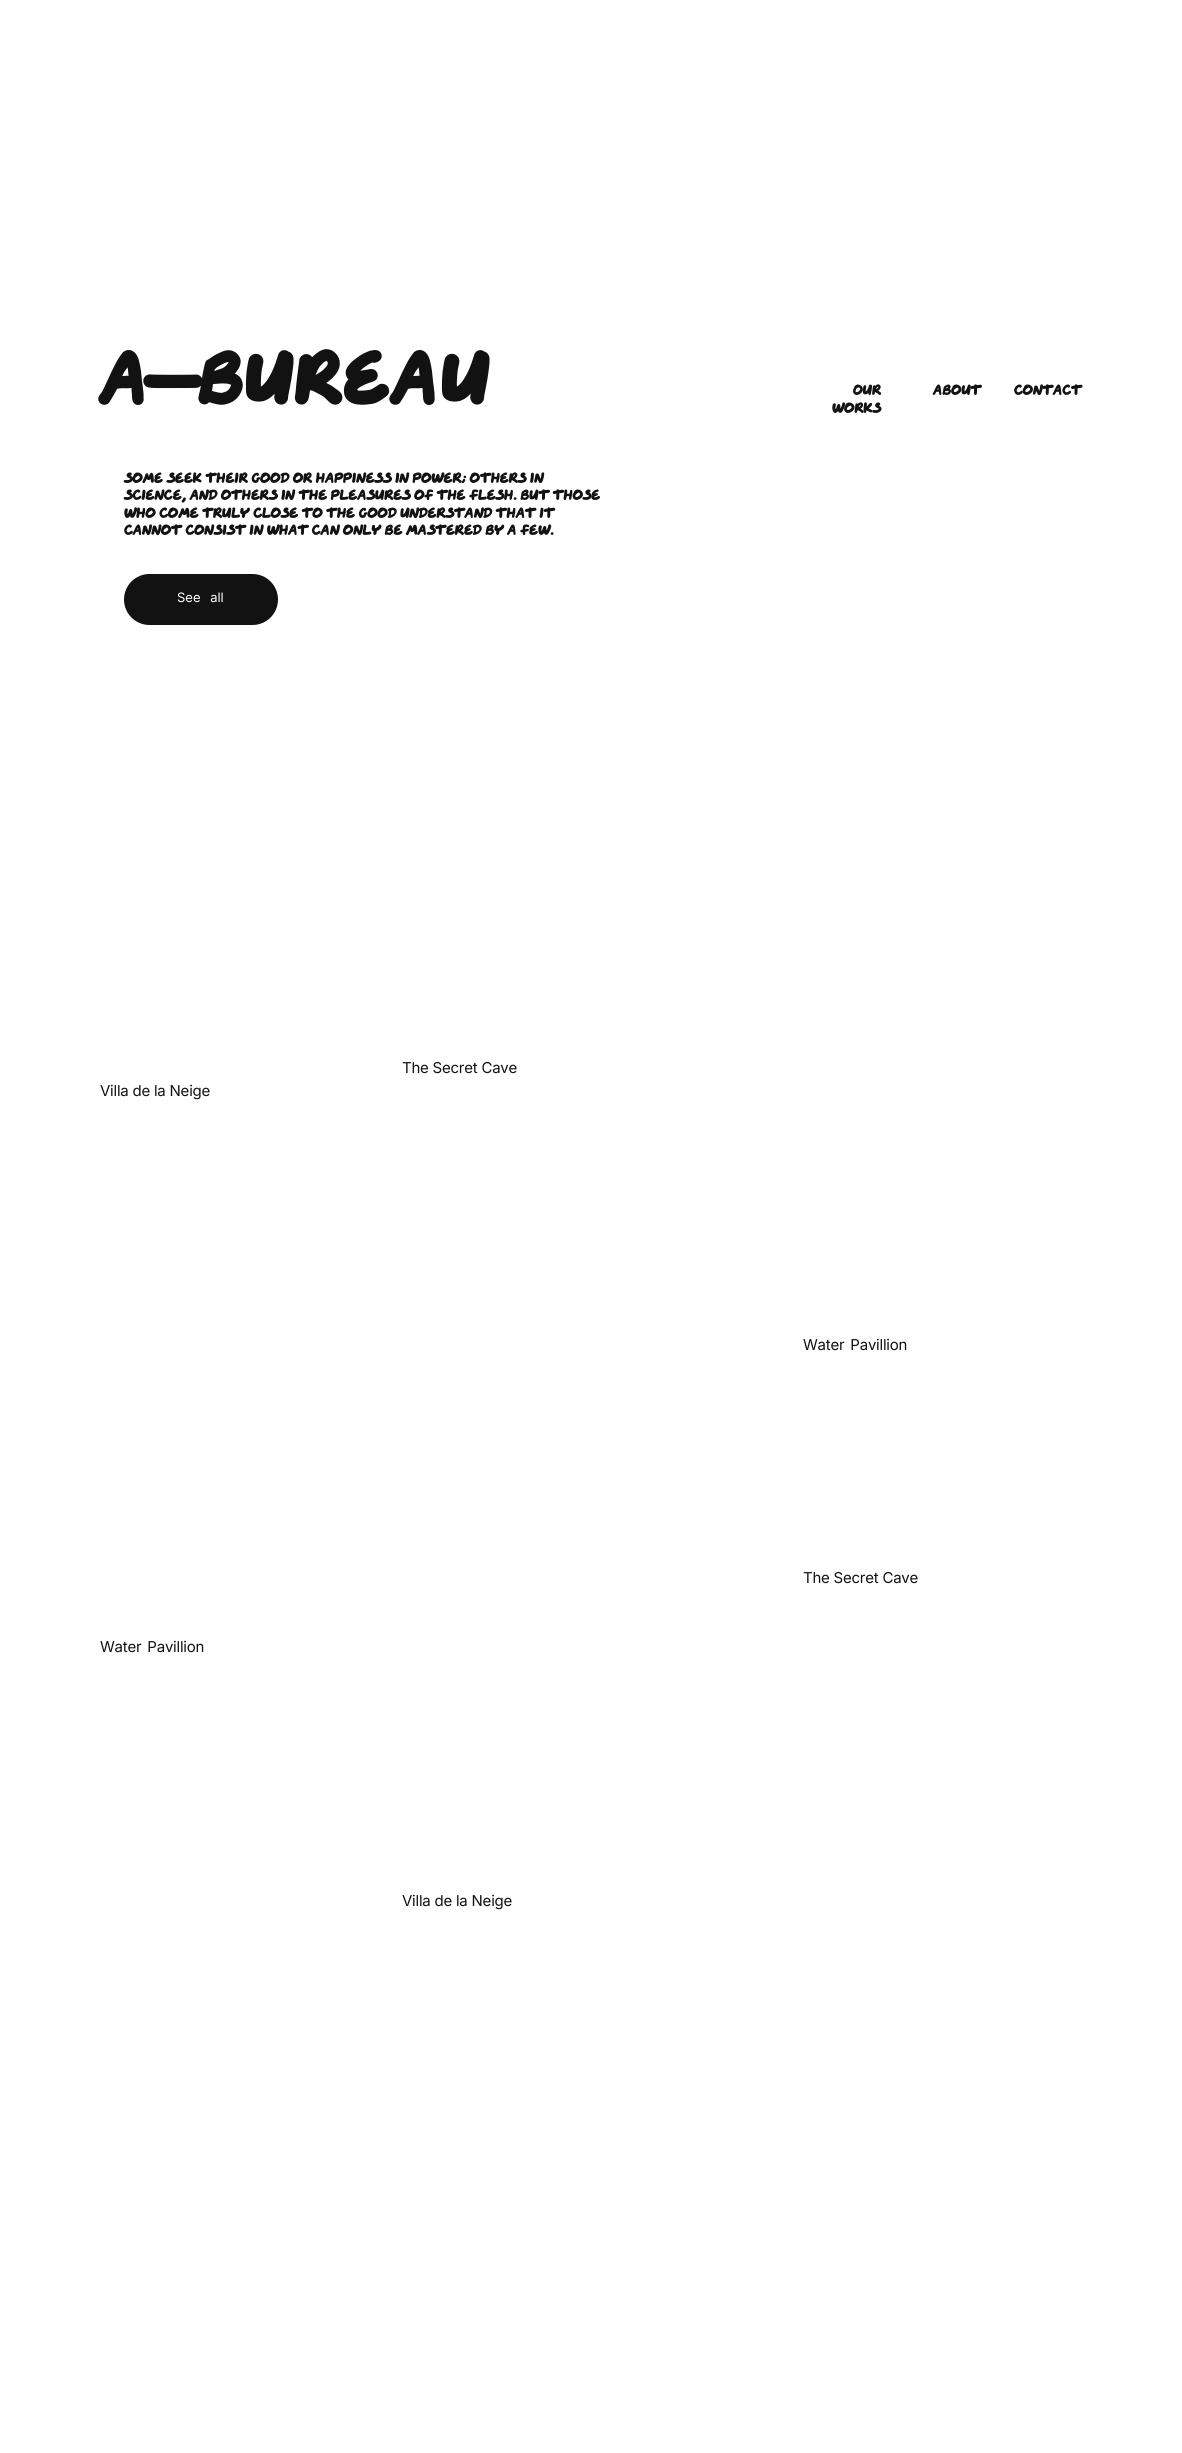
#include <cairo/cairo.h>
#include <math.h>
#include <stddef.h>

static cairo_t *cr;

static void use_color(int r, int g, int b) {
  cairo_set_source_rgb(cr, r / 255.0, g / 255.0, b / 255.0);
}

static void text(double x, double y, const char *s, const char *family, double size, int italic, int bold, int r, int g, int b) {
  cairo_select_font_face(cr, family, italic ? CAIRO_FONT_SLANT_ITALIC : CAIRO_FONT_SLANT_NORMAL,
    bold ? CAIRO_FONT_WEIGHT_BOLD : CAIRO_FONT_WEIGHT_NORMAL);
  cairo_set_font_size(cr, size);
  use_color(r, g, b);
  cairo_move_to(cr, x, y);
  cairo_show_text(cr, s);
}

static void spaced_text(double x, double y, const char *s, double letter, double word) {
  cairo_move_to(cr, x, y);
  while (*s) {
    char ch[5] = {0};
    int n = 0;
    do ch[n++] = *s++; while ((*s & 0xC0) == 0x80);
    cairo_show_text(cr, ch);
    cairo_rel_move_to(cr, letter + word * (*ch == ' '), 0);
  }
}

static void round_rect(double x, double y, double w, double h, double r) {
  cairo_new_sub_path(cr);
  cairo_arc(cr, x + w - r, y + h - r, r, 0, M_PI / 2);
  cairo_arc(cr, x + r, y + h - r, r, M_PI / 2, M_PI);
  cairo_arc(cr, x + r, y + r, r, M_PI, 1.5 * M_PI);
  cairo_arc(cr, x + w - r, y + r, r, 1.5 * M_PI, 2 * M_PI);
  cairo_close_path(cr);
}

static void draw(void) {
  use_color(255, 255, 255);
  cairo_paint(cr);
  use_color(19, 18, 18);
  round_rect(124, 574, 154, 51, 25.5);
  cairo_fill(cr);
  text(100, 405, "A—BUREAU", "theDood", 78.5, 0, 0, 19, 18, 18);
  cairo_set_font_size(cr, 15);
  spaced_text(853, 395, "Our", -0.23, 0);
  spaced_text(832, 413, "works", -0.23, 0);
  spaced_text(933, 395, "About", -0.23, 0);
  spaced_text(1014, 395, "Contact", -0.23, 0);
  spaced_text(124, 483, "Some seek their good or happiness in power; others in", -0.23, 0);
  spaced_text(124, 500, "science, and others in the pleasures of the flesh. But those", -0.23, 0);
  spaced_text(124, 518, "who come truly close to the good understand that it", -0.23, 0);
  spaced_text(124, 535, "cannot consist in what can only be mastered by a few.", -0.23, 0);
  cairo_select_font_face(cr, "Inter", CAIRO_FONT_SLANT_NORMAL, CAIRO_FONT_WEIGHT_NORMAL);
  cairo_set_font_size(cr, 13);
  use_color(255, 255, 255);
  spaced_text(177, 602, "See all", 0, 6);
  cairo_set_font_size(cr, 15);
  use_color(19, 18, 18);
  spaced_text(402, 1073, "The Secret Cave", -0.23, 0);
  spaced_text(100, 1096, "Villa de la Neige", -0.23, 0);
  spaced_text(803, 1350, "Water Pavillion", -0.23, 2);
  spaced_text(803, 1583, "The Secret Cave", -0.23, 0);
  spaced_text(100, 1652, "Water Pavillion", -0.23, 2);
  spaced_text(402, 1906, "Villa de la Neige", -0.23, 0);
}

int main(void) {
  cairo_surface_t *surface = cairo_image_surface_create(CAIRO_FORMAT_RGB24, 1182, 2453);
  cr = cairo_create(surface);
  cairo_font_options_t *options = cairo_font_options_create();
  cairo_font_options_set_hint_metrics(options, CAIRO_HINT_METRICS_OFF);
  cairo_font_options_set_hint_style(options, CAIRO_HINT_STYLE_NONE);
  cairo_set_font_options(cr, options);
  cairo_set_miter_limit(cr, 4);
  draw();
  cairo_surface_write_to_png(surface, "out.png");
  cairo_font_options_destroy(options);
  cairo_destroy(cr);
  cairo_surface_destroy(surface);
  return 0;
}
